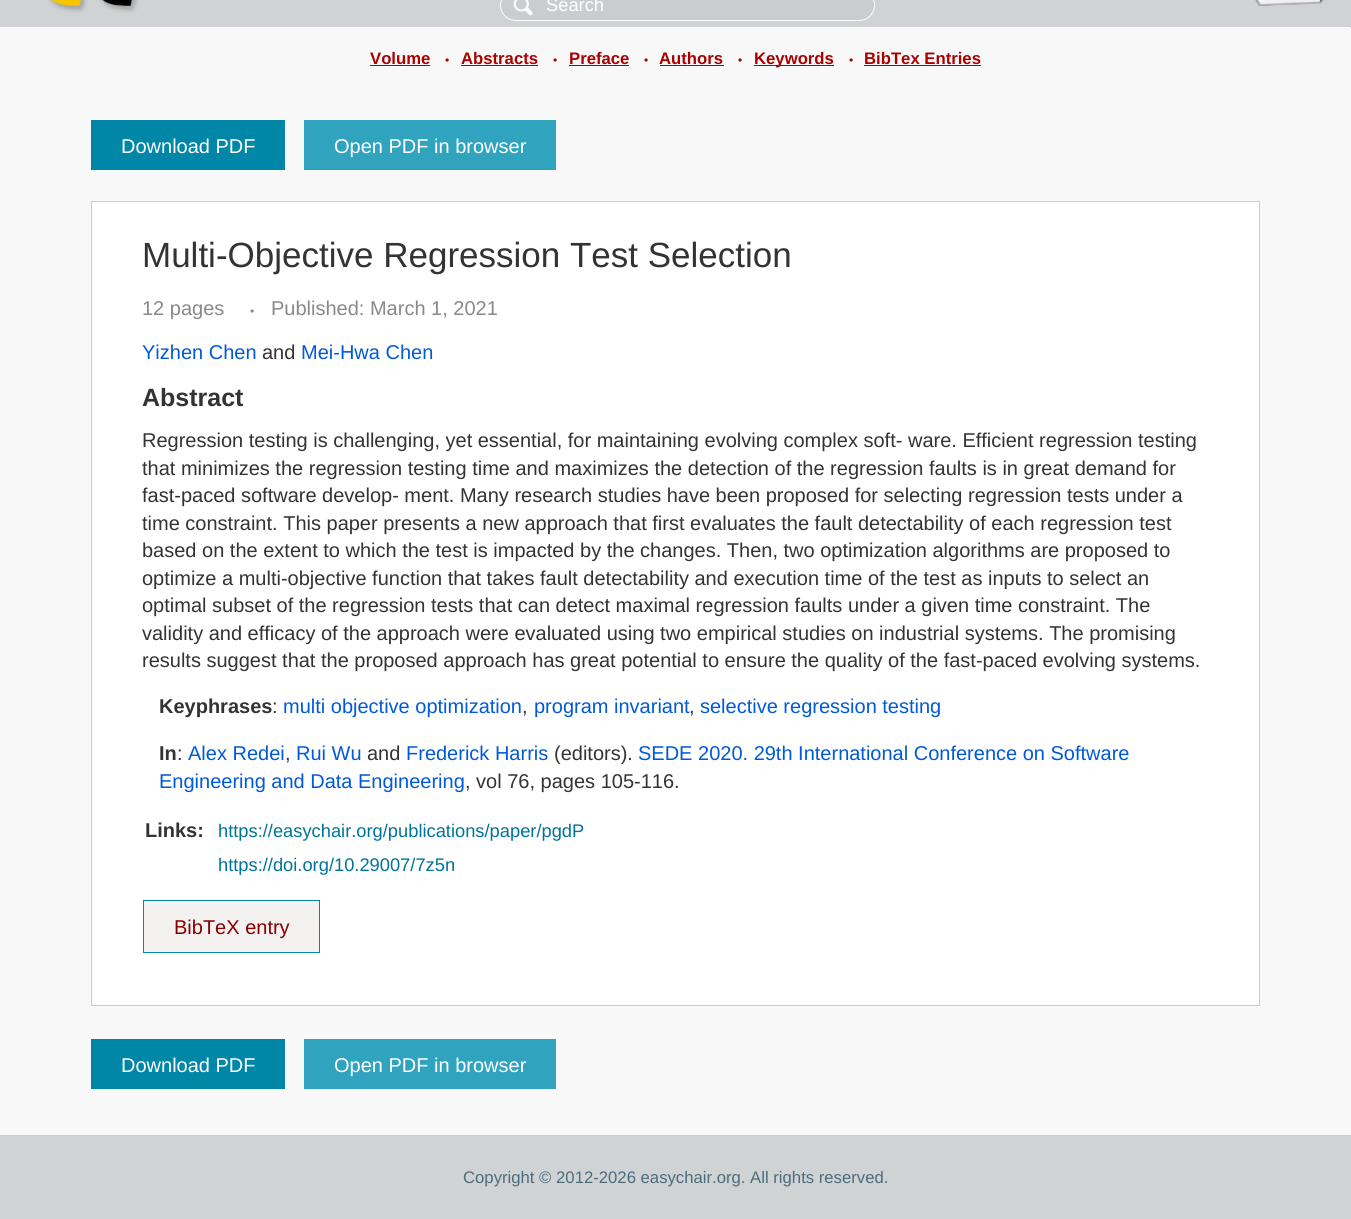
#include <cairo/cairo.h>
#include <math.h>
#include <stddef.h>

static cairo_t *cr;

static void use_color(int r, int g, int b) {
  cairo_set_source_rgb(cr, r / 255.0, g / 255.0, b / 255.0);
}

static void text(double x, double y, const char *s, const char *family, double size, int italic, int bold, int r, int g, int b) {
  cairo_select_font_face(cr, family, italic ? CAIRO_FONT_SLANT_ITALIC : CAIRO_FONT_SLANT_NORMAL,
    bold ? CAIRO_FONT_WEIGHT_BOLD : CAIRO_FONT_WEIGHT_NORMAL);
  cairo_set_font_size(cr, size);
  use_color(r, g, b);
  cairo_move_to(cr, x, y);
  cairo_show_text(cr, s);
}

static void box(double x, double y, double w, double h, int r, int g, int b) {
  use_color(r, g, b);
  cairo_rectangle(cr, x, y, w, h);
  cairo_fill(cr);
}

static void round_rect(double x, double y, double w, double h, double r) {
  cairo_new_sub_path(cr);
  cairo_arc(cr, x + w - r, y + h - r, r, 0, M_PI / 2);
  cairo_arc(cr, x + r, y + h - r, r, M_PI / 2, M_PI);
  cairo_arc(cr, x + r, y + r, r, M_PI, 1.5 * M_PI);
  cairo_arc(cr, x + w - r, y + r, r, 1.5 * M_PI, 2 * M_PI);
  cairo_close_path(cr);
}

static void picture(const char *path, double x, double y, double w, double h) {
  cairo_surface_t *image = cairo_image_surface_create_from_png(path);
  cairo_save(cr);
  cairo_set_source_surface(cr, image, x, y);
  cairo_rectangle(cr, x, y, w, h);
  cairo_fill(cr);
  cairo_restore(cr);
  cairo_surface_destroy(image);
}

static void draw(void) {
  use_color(255, 255, 255);
  cairo_paint(cr);
  box(0, 0, 1350, 26, 208, 211, 212);
  picture("img_01.png", 48, 0, 91, 13);
  box(1350, 0, 1, 28, 208, 211, 212);
  box(0, 26, 1351, 1, 208, 211, 212);
  use_color(201, 205, 208);
  round_rect(500, -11, 375, 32, 16);
  cairo_fill(cr);
  picture("img_02.png", 513, 0, 20, 16);
  round_rect(500.5, -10.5, 374, 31, 15.5);
  use_color(255, 255, 255);
  cairo_set_line_width(cr, 1);
  cairo_stroke(cr);
  picture("img_03.png", 1255, 0, 69, 6);
  box(0, 28, 1351, 1107, 248, 248, 248);
  box(370, 65, 60, 1, 170, 0, 0);
  box(461, 65, 77, 1, 170, 0, 0);
  box(569, 65, 60, 1, 170, 0, 0);
  box(660, 65, 64, 1, 170, 0, 0);
  box(754, 65, 80, 1, 170, 0, 0);
  box(864, 65, 117, 1, 170, 0, 0);
  box(91, 120, 194, 50, 0, 134, 166);
  box(304, 120, 252, 50, 48, 164, 191);
  use_color(255, 255, 255);
  cairo_rectangle(cr, 91.5, 201.5, 1168, 804);
  cairo_fill_preserve(cr);
  use_color(204, 204, 204);
  cairo_stroke(cr);
  use_color(243, 242, 241);
  cairo_rectangle(cr, 143.5, 900.5, 176, 52);
  cairo_fill_preserve(cr);
  use_color(0, 134, 166);
  cairo_stroke(cr);
  box(91, 1039, 194, 50, 0, 134, 166);
  box(304, 1039, 252, 50, 48, 164, 191);
  box(0, 1136, 1351, 83, 208, 211, 212);
  box(0, 1135, 1351, 1, 204, 204, 204);
  text(546, 11, "Search", "Liberation Sans", 18.3, 0, 0, 255, 255, 255);
  text(370, 64, "Volume", "Liberation Sans", 16.7, 0, 1, 170, 0, 0);
  text(445, 64, "•", "Liberation Sans", 12, 0, 0, 170, 0, 0);
  text(461, 64, "Abstracts", "Liberation Sans", 16.7, 0, 1, 170, 0, 0);
  text(553, 64, "•", "Liberation Sans", 12, 0, 0, 170, 0, 0);
  text(569, 64, "Preface", "Liberation Sans", 16.7, 0, 1, 170, 0, 0);
  text(644, 64, "•", "Liberation Sans", 12, 0, 0, 170, 0, 0);
  text(659, 64, "Authors", "Liberation Sans", 16.7, 0, 1, 170, 0, 0);
  text(738, 64, "•", "Liberation Sans", 12, 0, 0, 170, 0, 0);
  text(754, 64, "Keywords", "Liberation Sans", 16.7, 0, 1, 170, 0, 0);
  text(849, 64, "•", "Liberation Sans", 12, 0, 0, 170, 0, 0);
  text(864, 64, "BibTex Entries", "Liberation Sans", 16.7, 0, 1, 170, 0, 0);
  text(121, 153, "Download PDF", "Liberation Sans", 20, 0, 0, 255, 255, 255);
  text(334, 153, "Open PDF in browser", "Liberation Sans", 20, 0, 0, 255, 255, 255);
  text(142, 267, "Multi-Objective Regression Test Selection", "Liberation Sans", 35, 0, 0, 51, 51, 51);
  text(142, 315, "12 pages", "Liberation Sans", 20, 0, 0, 137, 137, 137);
  text(250, 315, "•", "Liberation Sans", 12, 0, 0, 137, 137, 137);
  text(271, 315, "Published: March 1, 2021", "Liberation Sans", 20, 0, 0, 137, 137, 137);
  text(142, 359, "Yizhen Chen", "Liberation Sans", 20, 0, 0, 0, 89, 219);
  text(262, 359, "and", "Liberation Sans", 20, 0, 0, 51, 51, 51);
  text(301, 359, "Mei-Hwa Chen", "Liberation Sans", 20, 0, 0, 0, 89, 219);
  text(142, 406, "Abstract", "Liberation Sans", 25, 0, 1, 51, 51, 51);
  text(142, 447, "Regression testing is challenging, yet essential, for maintaining evolving complex soft- ware. Efficient regression testing", "Liberation Sans", 20, 0, 0, 51, 51, 51);
  text(142, 475, "that minimizes the regression testing time and maximizes the detection of the regression faults is in great demand for", "Liberation Sans", 20, 0, 0, 51, 51, 51);
  text(142, 502, "fast-paced software develop- ment. Many research studies have been proposed for selecting regression tests under a", "Liberation Sans", 20, 0, 0, 51, 51, 51);
  text(142, 530, "time constraint. This paper presents a new approach that first evaluates the fault detectability of each regression test", "Liberation Sans", 20, 0, 0, 51, 51, 51);
  text(142, 557, "based on the extent to which the test is impacted by the changes. Then, two optimization algorithms are proposed to", "Liberation Sans", 20, 0, 0, 51, 51, 51);
  text(142, 585, "optimize a multi-objective function that takes fault detectability and execution time of the test as inputs to select an", "Liberation Sans", 20, 0, 0, 51, 51, 51);
  text(142, 612, "optimal subset of the regression tests that can detect maximal regression faults under a given time constraint. The", "Liberation Sans", 20, 0, 0, 51, 51, 51);
  text(142, 640, "validity and efficacy of the approach were evaluated using two empirical studies on industrial systems. The promising", "Liberation Sans", 20, 0, 0, 51, 51, 51);
  text(142, 667, "results suggest that the proposed approach has great potential to ensure the quality of the fast-paced evolving systems.", "Liberation Sans", 20, 0, 0, 51, 51, 51);
  text(159, 713, "Keyphrases", "Liberation Sans", 20, 0, 1, 51, 51, 51);
  text(272, 713, ":", "Liberation Sans", 20, 0, 0, 51, 51, 51);
  text(283, 713, "multi objective optimization", "Liberation Sans", 20, 0, 0, 0, 89, 219);
  text(522, 713, ",", "Liberation Sans", 20, 0, 0, 51, 51, 51);
  text(534, 713, "program invariant", "Liberation Sans", 20, 0, 0, 0, 89, 219);
  text(689, 713, ",", "Liberation Sans", 20, 0, 0, 51, 51, 51);
  text(700, 713, "selective regression testing", "Liberation Sans", 20, 0, 0, 0, 89, 219);
  text(159, 760, "In", "Liberation Sans", 20, 0, 1, 51, 51, 51);
  text(177, 760, ":", "Liberation Sans", 20, 0, 0, 51, 51, 51);
  text(188, 760, "Alex Redei", "Liberation Sans", 20, 0, 0, 0, 89, 219);
  text(285, 760, ",", "Liberation Sans", 20, 0, 0, 51, 51, 51);
  text(296, 760, "Rui Wu", "Liberation Sans", 20, 0, 0, 0, 89, 219);
  text(367, 760, "and", "Liberation Sans", 20, 0, 0, 51, 51, 51);
  text(406, 760, "Frederick Harris", "Liberation Sans", 20, 0, 0, 0, 89, 219);
  text(554, 760, "(editors).", "Liberation Sans", 20, 0, 0, 51, 51, 51);
  text(638, 760, "SEDE 2020. 29th International Conference on Software", "Liberation Sans", 20, 0, 0, 0, 89, 219);
  text(159, 788, "Engineering and Data Engineering", "Liberation Sans", 20, 0, 0, 0, 89, 219);
  text(465, 788, ", vol 76, pages 105-116.", "Liberation Sans", 20, 0, 0, 51, 51, 51);
  text(145, 837, "Links:", "Liberation Sans", 20, 0, 1, 51, 51, 51);
  text(218, 837, "https://easychair.org/publications/paper/pgdP", "Liberation Sans", 18.3, 0, 0, 0, 115, 152);
  text(218, 871, "https://doi.org/10.29007/7z5n", "Liberation Sans", 18.3, 0, 0, 0, 115, 152);
  text(174, 934, "BibTeX entry", "Liberation Sans", 20, 0, 0, 136, 0, 0);
  text(121, 1072, "Download PDF", "Liberation Sans", 20, 0, 0, 255, 255, 255);
  text(334, 1072, "Open PDF in browser", "Liberation Sans", 20, 0, 0, 255, 255, 255);
  text(463, 1183, "Copyright © 2012-2026 easychair.org. All rights reserved.", "Liberation Sans", 16.7, 0, 0, 76, 108, 124);
}

int main(void) {
  cairo_surface_t *surface = cairo_image_surface_create(CAIRO_FORMAT_RGB24, 1351, 1219);
  cr = cairo_create(surface);
  cairo_font_options_t *options = cairo_font_options_create();
  cairo_font_options_set_hint_metrics(options, CAIRO_HINT_METRICS_OFF);
  cairo_font_options_set_hint_style(options, CAIRO_HINT_STYLE_NONE);
  cairo_set_font_options(cr, options);
  cairo_set_miter_limit(cr, 4);
  draw();
  cairo_surface_write_to_png(surface, "out.png");
  cairo_font_options_destroy(options);
  cairo_destroy(cr);
  cairo_surface_destroy(surface);
  return 0;
}
